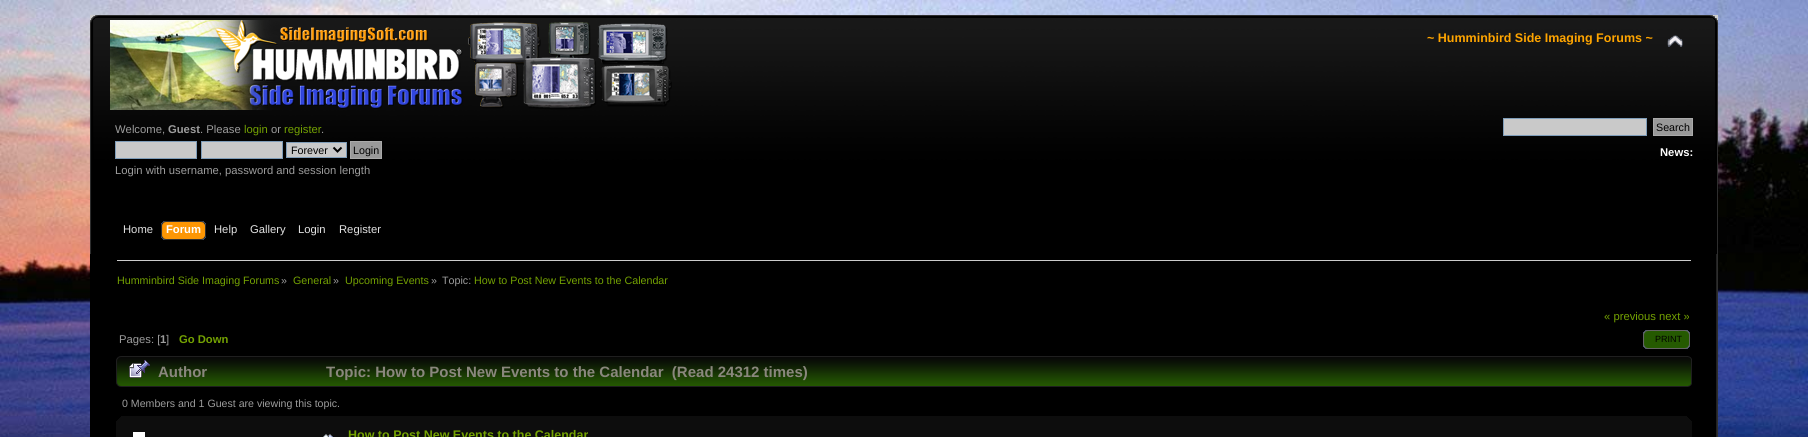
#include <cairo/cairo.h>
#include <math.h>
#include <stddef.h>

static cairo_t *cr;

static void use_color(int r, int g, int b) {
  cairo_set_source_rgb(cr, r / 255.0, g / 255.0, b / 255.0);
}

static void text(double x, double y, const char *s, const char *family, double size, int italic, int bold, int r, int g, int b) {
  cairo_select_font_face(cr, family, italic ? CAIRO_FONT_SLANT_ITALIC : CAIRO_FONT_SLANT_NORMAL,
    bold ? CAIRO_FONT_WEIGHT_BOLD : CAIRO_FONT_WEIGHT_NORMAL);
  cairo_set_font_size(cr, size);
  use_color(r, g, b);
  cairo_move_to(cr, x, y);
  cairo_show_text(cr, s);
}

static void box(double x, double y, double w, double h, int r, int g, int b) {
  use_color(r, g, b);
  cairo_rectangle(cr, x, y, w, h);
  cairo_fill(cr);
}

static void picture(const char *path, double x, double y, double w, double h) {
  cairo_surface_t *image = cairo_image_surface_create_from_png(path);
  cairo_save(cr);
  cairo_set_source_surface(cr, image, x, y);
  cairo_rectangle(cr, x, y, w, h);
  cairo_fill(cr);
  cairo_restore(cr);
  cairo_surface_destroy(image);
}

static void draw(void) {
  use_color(255, 255, 255);
  cairo_paint(cr);
  picture("img_01.png", 0, 0, 1808, 437);
  picture("img_02.png", 90, 15, 1620, 239);
  picture("img_03.png", 1710, 15, 8, 239);
  picture("img_04.png", 110, 20, 562, 90);
  picture("img_05.png", 1667, 35, 16, 12);
  use_color(201, 201, 201);
  cairo_rectangle(cr, 115.5, 141.5, 81, 17);
  cairo_fill_preserve(cr);
  use_color(127, 157, 185);
  cairo_set_line_width(cr, 1);
  cairo_stroke(cr);
  use_color(201, 201, 201);
  cairo_rectangle(cr, 201.5, 141.5, 81, 17);
  cairo_fill_preserve(cr);
  use_color(127, 157, 185);
  cairo_stroke(cr);
  use_color(201, 201, 201);
  cairo_rectangle(cr, 286.5, 142.5, 60, 15);
  cairo_fill_preserve(cr);
  use_color(127, 157, 185);
  cairo_stroke(cr);
  cairo_new_path(cr);
  cairo_move_to(cr, 333.5, 147.5);
  cairo_line_to(cr, 337.5, 151.5);
  cairo_line_to(cr, 341.5, 147.5);
  use_color(0, 0, 0);
  cairo_set_line_width(cr, 2);
  cairo_stroke(cr);
  use_color(153, 153, 153);
  cairo_rectangle(cr, 350.5, 141.5, 31, 17);
  cairo_fill_preserve(cr);
  use_color(170, 170, 170);
  cairo_set_line_width(cr, 1);
  cairo_stroke(cr);
  use_color(201, 201, 201);
  cairo_rectangle(cr, 1503.5, 118.5, 143, 17);
  cairo_fill_preserve(cr);
  use_color(127, 157, 185);
  cairo_stroke(cr);
  use_color(153, 153, 153);
  cairo_rectangle(cr, 1653.5, 118.5, 39, 17);
  cairo_fill_preserve(cr);
  use_color(170, 170, 170);
  cairo_stroke(cr);
  picture("img_06.png", 166, 221, 40, 19);
  picture("img_07.png", 161, 221, 5, 19);
  box(90, 254, 1626, 183, 0, 0, 0);
  picture("img_08.png", 1716, 254, 2, 183);
  box(117, 260, 1574, 1, 204, 204, 204);
  picture("img_09.png", 1643, 330, 39, 19);
  picture("img_10.png", 1682, 330, 8, 19);
  picture("img_11.png", 116, 356, 1572, 31);
  picture("img_12.png", 1688, 356, 4, 31);
  picture("img_13.png", 129, 360, 21, 18);
  box(116, 416, 1576, 21, 13, 13, 13);
  picture("img_14.png", 116, 416, 5, 5);
  picture("img_15.png", 1687, 416, 5, 5);
  box(133, 432, 12, 5, 255, 255, 255);
  picture("img_16.png", 323, 434, 10, 3);
  text(1427, 42, "~ Humminbird Side Imaging Forums ~", "Liberation Sans", 12.5, 0, 1, 255, 165, 0);
  text(115, 133, "Welcome,", "Liberation Sans", 11.25, 0, 0, 157, 157, 157);
  text(168, 133, "Guest", "Liberation Sans", 11.25, 0, 1, 157, 157, 157);
  text(200, 133, ". Please", "Liberation Sans", 11.25, 0, 0, 157, 157, 157);
  text(244, 133, "login", "Liberation Sans", 11.25, 0, 0, 116, 162, 2);
  text(271, 133, "or", "Liberation Sans", 11.25, 0, 0, 157, 157, 157);
  text(284, 133, "register", "Liberation Sans", 11.25, 0, 0, 116, 162, 2);
  text(321, 133, ".", "Liberation Sans", 11.25, 0, 0, 157, 157, 157);
  text(291, 154, "Forever", "Liberation Sans", 10.7, 0, 0, 0, 0, 0);
  text(353, 154, "Login", "Liberation Sans", 10.7, 0, 0, 0, 0, 0);
  text(115, 174, "Login with username, password and session length", "Liberation Sans", 11.25, 0, 0, 157, 157, 157);
  text(1656, 131, "Search", "Liberation Sans", 10.7, 0, 0, 0, 0, 0);
  text(1660, 156, "News:", "Liberation Sans", 11.25, 0, 1, 255, 255, 255);
  text(123, 233, "Home", "Liberation Sans", 11.25, 0, 0, 227, 227, 227);
  text(166, 233, "Forum", "Liberation Sans", 11.25, 0, 1, 255, 255, 255);
  text(214, 233, "Help", "Liberation Sans", 11.25, 0, 0, 227, 227, 227);
  text(250, 233, "Gallery", "Liberation Sans", 11.25, 0, 0, 227, 227, 227);
  text(298, 233, "Login", "Liberation Sans", 11.25, 0, 0, 227, 227, 227);
  text(339, 233, "Register", "Liberation Sans", 11.25, 0, 0, 227, 227, 227);
  text(117, 284, "Humminbird Side Imaging Forums", "Liberation Sans", 10.7, 0, 0, 116, 162, 2);
  text(281, 284, "»", "Liberation Sans", 10.7, 0, 0, 157, 157, 157);
  text(293, 284, "General", "Liberation Sans", 10.7, 0, 0, 116, 162, 2);
  text(333, 284, "»", "Liberation Sans", 10.7, 0, 0, 157, 157, 157);
  text(345, 284, "Upcoming Events", "Liberation Sans", 10.7, 0, 0, 116, 162, 2);
  text(431, 284, "»", "Liberation Sans", 10.7, 0, 0, 157, 157, 157);
  text(442, 284, "Topic:", "Liberation Sans", 10.7, 0, 0, 157, 157, 157);
  text(474, 284, "How to Post New Events to the Calendar", "Liberation Sans", 10.7, 0, 0, 116, 162, 2);
  text(1604, 320, "« previous next »", "Liberation Sans", 11.25, 0, 0, 116, 162, 2);
  text(119, 343, "Pages: [", "Liberation Sans", 11.25, 0, 0, 157, 157, 157);
  text(160, 343, "1", "Liberation Sans", 11.25, 0, 1, 157, 157, 157);
  text(166, 343, "]", "Liberation Sans", 11.25, 0, 0, 157, 157, 157);
  text(179, 343, "Go Down", "Liberation Sans", 11.25, 0, 1, 116, 162, 2);
  text(1655, 342, "PRINT", "Liberation Sans", 9, 0, 0, 0, 0, 0);
  text(158, 377, "Author", "Liberation Sans", 15, 0, 1, 138, 135, 125);
  text(326, 377, "Topic: How to Post New Events to the Calendar  (Read 24312 times)", "Liberation Sans", 15, 0, 1, 138, 135, 125);
  text(122, 407, "0 Members and 1 Guest are viewing this topic.", "Liberation Sans", 10.6, 0, 0, 157, 157, 157);
  text(348, 439, "How to Post New Events to the Calendar", "Liberation Sans", 12.5, 0, 1, 116, 162, 2);
}

int main(void) {
  cairo_surface_t *surface = cairo_image_surface_create(CAIRO_FORMAT_RGB24, 1808, 437);
  cr = cairo_create(surface);
  cairo_font_options_t *options = cairo_font_options_create();
  cairo_font_options_set_hint_metrics(options, CAIRO_HINT_METRICS_OFF);
  cairo_font_options_set_hint_style(options, CAIRO_HINT_STYLE_NONE);
  cairo_set_font_options(cr, options);
  cairo_set_miter_limit(cr, 4);
  draw();
  cairo_surface_write_to_png(surface, "out.png");
  cairo_font_options_destroy(options);
  cairo_destroy(cr);
  cairo_surface_destroy(surface);
  return 0;
}
